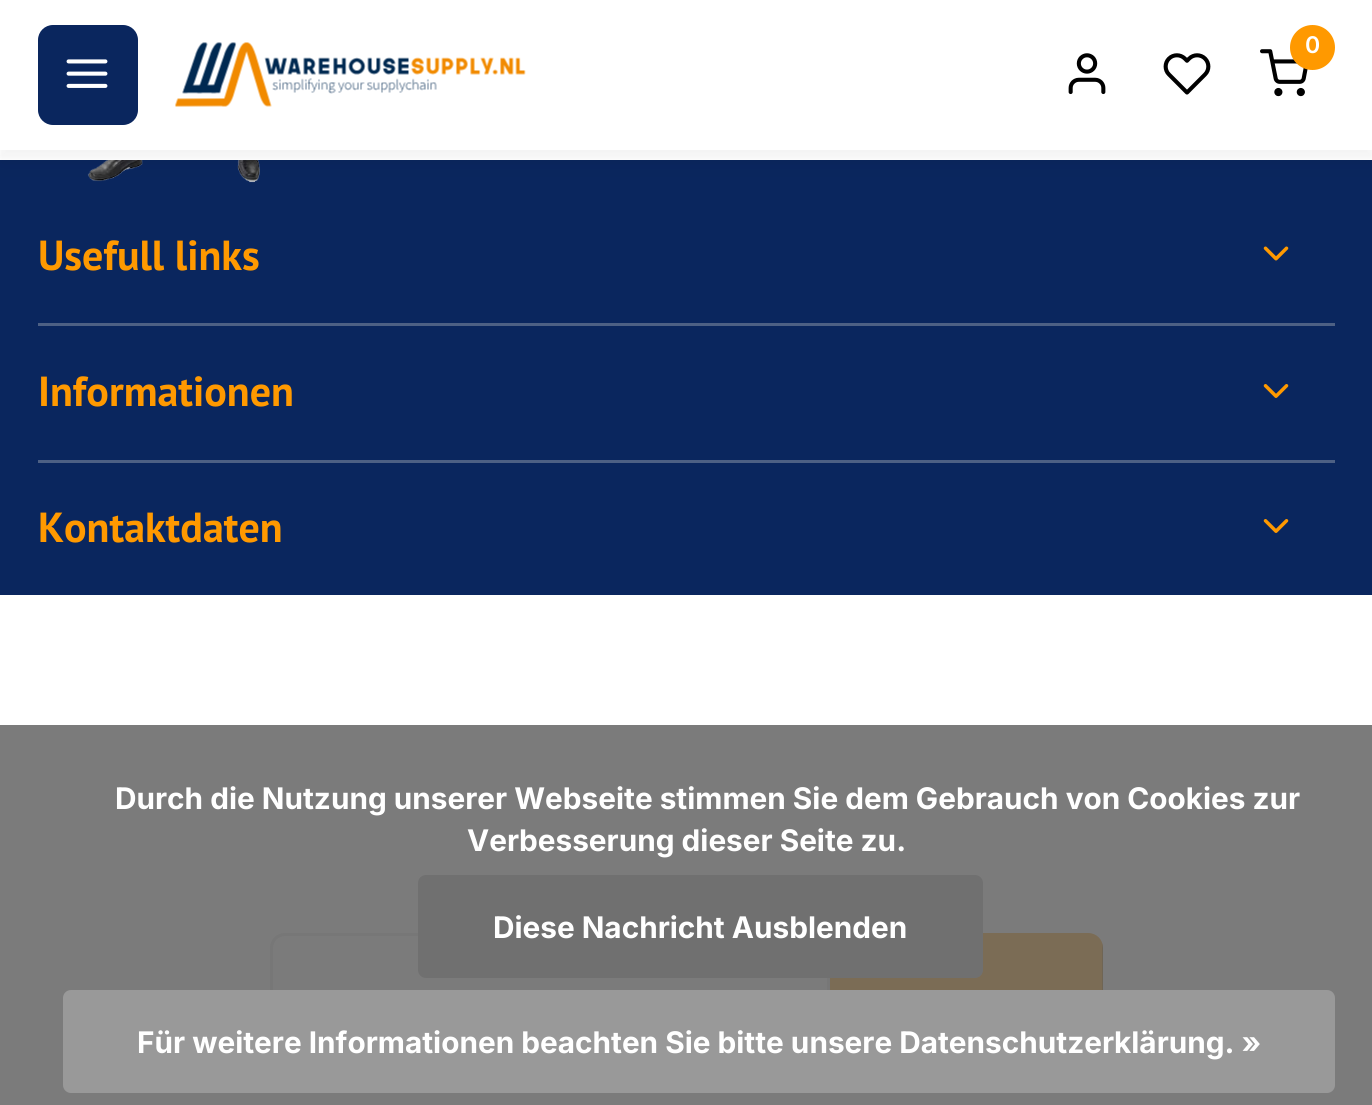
#include <cairo/cairo.h>
#include <math.h>
#include <stddef.h>

static cairo_t *cr;

static void use_color(int r, int g, int b) {
  cairo_set_source_rgb(cr, r / 255.0, g / 255.0, b / 255.0);
}

static void text(double x, double y, const char *s, const char *family, double size, int italic, int bold, int r, int g, int b) {
  cairo_select_font_face(cr, family, italic ? CAIRO_FONT_SLANT_ITALIC : CAIRO_FONT_SLANT_NORMAL,
    bold ? CAIRO_FONT_WEIGHT_BOLD : CAIRO_FONT_WEIGHT_NORMAL);
  cairo_set_font_size(cr, size);
  use_color(r, g, b);
  cairo_move_to(cr, x, y);
  cairo_show_text(cr, s);
}

static void box(double x, double y, double w, double h, int r, int g, int b) {
  use_color(r, g, b);
  cairo_rectangle(cr, x, y, w, h);
  cairo_fill(cr);
}

static void round_rect(double x, double y, double w, double h, double r) {
  cairo_new_sub_path(cr);
  cairo_arc(cr, x + w - r, y + h - r, r, 0, M_PI / 2);
  cairo_arc(cr, x + r, y + h - r, r, M_PI / 2, M_PI);
  cairo_arc(cr, x + r, y + r, r, M_PI, 1.5 * M_PI);
  cairo_arc(cr, x + w - r, y + r, r, 1.5 * M_PI, 2 * M_PI);
  cairo_close_path(cr);
}

static void shadow(double x, double y, double w, double h, double r, double blur, double alpha) {
  cairo_push_group_with_content(cr, CAIRO_CONTENT_ALPHA);
  cairo_set_operator(cr, CAIRO_OPERATOR_SOURCE);
  for (int i = 15; i >= -15 && fmin(w, h) + blur * i / 3 > 0; i -= 2) {
    double e = blur * i / 6;
    cairo_set_source_rgba(cr, 0, 0, 0, alpha * erfc((i - 1) / 8.5) / 2);
    round_rect(x - e, y - e, w + 2 * e, h + 2 * e, fmax(0, fmin(r + e + blur * .6, fmin(w, h) / 2 + e)));
    cairo_fill(cr);
  }
  cairo_pattern_t *soft = cairo_pop_group(cr);
  cairo_mask(cr, soft);
  cairo_pattern_destroy(soft);
}

static void picture(const char *path, double x, double y, double w, double h) {
  cairo_surface_t *image = cairo_image_surface_create_from_png(path);
  cairo_save(cr);
  cairo_set_source_surface(cr, image, x, y);
  cairo_rectangle(cr, x, y, w, h);
  cairo_fill(cr);
  cairo_restore(cr);
  cairo_surface_destroy(image);
}

static void draw(void) {
  use_color(255, 255, 255);
  cairo_paint(cr);
  box(0, 160, 1372, 435, 10, 38, 94);
  picture("img_06.png", 87, 160, 173, 23);
  use_color(0, 0, 0);
  shadow(0, 13, 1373, 150, 0, 12.5, 0.05);
  box(0, 150, 1372, 10, 255, 255, 255);
  use_color(0, 0, 0);
  shadow(0, 8, 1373, 150, 0, 5, 0.05);
  box(0, 0, 1372, 150, 255, 255, 255);
  use_color(10, 38, 94);
  round_rect(38, 25, 100, 100, 15);
  cairo_fill(cr);
  picture("img_01.png", 66, 59, 42, 29);
  picture("img_02.png", 175, 42, 351, 65);
  picture("img_03.png", 1260, 49, 48, 48);
  use_color(255, 153, 0);
  cairo_arc(cr, 1312.5, 47.5, 22.5, 0, 2 * M_PI);
  cairo_fill(cr);
  picture("img_04.png", 1068, 53, 38, 42);
  picture("img_05.png", 1163, 53, 48, 42);
  box(38, 323, 1297, 3, 77, 96, 132);
  picture("img_07.png", 1263, 246, 26, 15);
  box(38, 460, 1297, 3, 77, 96, 132);
  picture("img_08.png", 1263, 384, 26, 14);
  picture("img_08.png", 1263, 519, 26, 14);
  cairo_new_path(cr);
  cairo_move_to(cr, 285, 934.5);
  cairo_line_to(cr, 828.5, 934.5);
  cairo_line_to(cr, 828.5, 1056.5);
  cairo_line_to(cr, 285, 1056.5);
  cairo_curve_to(cr, 277.5, 1056.5, 271.5, 1050.5, 271.5, 1043);
  cairo_line_to(cr, 271.5, 948);
  cairo_curve_to(cr, 271.5, 940.5, 277.5, 934.5, 285, 934.5);
  cairo_close_path(cr);
  use_color(225, 225, 225);
  cairo_set_line_width(cr, 3);
  cairo_stroke(cr);
  use_color(255, 153, 0);
  cairo_new_path(cr);
  cairo_move_to(cr, 830, 933);
  cairo_line_to(cr, 1088, 933);
  cairo_curve_to(cr, 1096.5, 933, 1103, 939.5, 1103, 948);
  cairo_line_to(cr, 1103, 1043);
  cairo_curve_to(cr, 1103, 1051.5, 1096.5, 1058, 1088, 1058);
  cairo_line_to(cr, 830, 1058);
  cairo_close_path(cr);
  cairo_fill(cr);
  use_color(177, 110, 0);
  cairo_new_path(cr);
  cairo_move_to(cr, 830, 1052);
  cairo_line_to(cr, 830, 1058);
  cairo_line_to(cr, 1088, 1058);
  cairo_curve_to(cr, 1096, 1058, 1103, 1051, 1103, 1043);
  cairo_line_to(cr, 1103, 948);
  cairo_line_to(cr, 1102, 943);
  cairo_line_to(cr, 1102, 1038);
  cairo_curve_to(cr, 1102, 1046, 1096, 1052, 1088, 1052);
  cairo_close_path(cr);
  cairo_fill(cr);
  cairo_set_source_rgba(cr, 0.392, 0.392, 0.392, 0.85);
  cairo_rectangle(cr, 0, 725, 1372, 380);
  cairo_fill(cr);
  use_color(112, 112, 112);
  round_rect(418, 875, 565, 103, 8);
  cairo_fill(cr);
  use_color(153, 153, 153);
  round_rect(63, 990, 1272, 103, 8);
  cairo_fill(cr);
  text(1305, 53, "0", "Inter SemiBold", 23, 0, 0, 255, 255, 255);
  text(38, 270, "Usefull links", "PT Sans", 42, 0, 1, 255, 153, 0);
  text(38, 406, "Informationen", "PT Sans", 42, 0, 1, 255, 153, 0);
  text(38, 542, "Kontaktdaten", "PT Sans", 42, 0, 1, 255, 153, 0);
  text(115, 809, "Durch die Nutzung unserer Webseite stimmen Sie dem Gebrauch von Cookies zur", "Inter", 29.75, 0, 1, 255, 255, 255);
  text(467, 851, "Verbesserung dieser Seite zu.", "Inter", 29.75, 0, 1, 255, 255, 255);
  text(493, 938, "Diese Nachricht Ausblenden", "Inter", 29.75, 0, 1, 255, 255, 255);
  text(137, 1053, "Für weitere Informationen beachten Sie bitte unsere Datenschutzerklärung. »", "Inter", 29.75, 0, 1, 255, 255, 255);
}

int main(void) {
  cairo_surface_t *surface = cairo_image_surface_create(CAIRO_FORMAT_RGB24, 1372, 1105);
  cr = cairo_create(surface);
  cairo_font_options_t *options = cairo_font_options_create();
  cairo_font_options_set_hint_metrics(options, CAIRO_HINT_METRICS_OFF);
  cairo_font_options_set_hint_style(options, CAIRO_HINT_STYLE_NONE);
  cairo_set_font_options(cr, options);
  cairo_set_miter_limit(cr, 4);
  draw();
  cairo_surface_write_to_png(surface, "out.png");
  cairo_font_options_destroy(options);
  cairo_destroy(cr);
  cairo_surface_destroy(surface);
  return 0;
}
